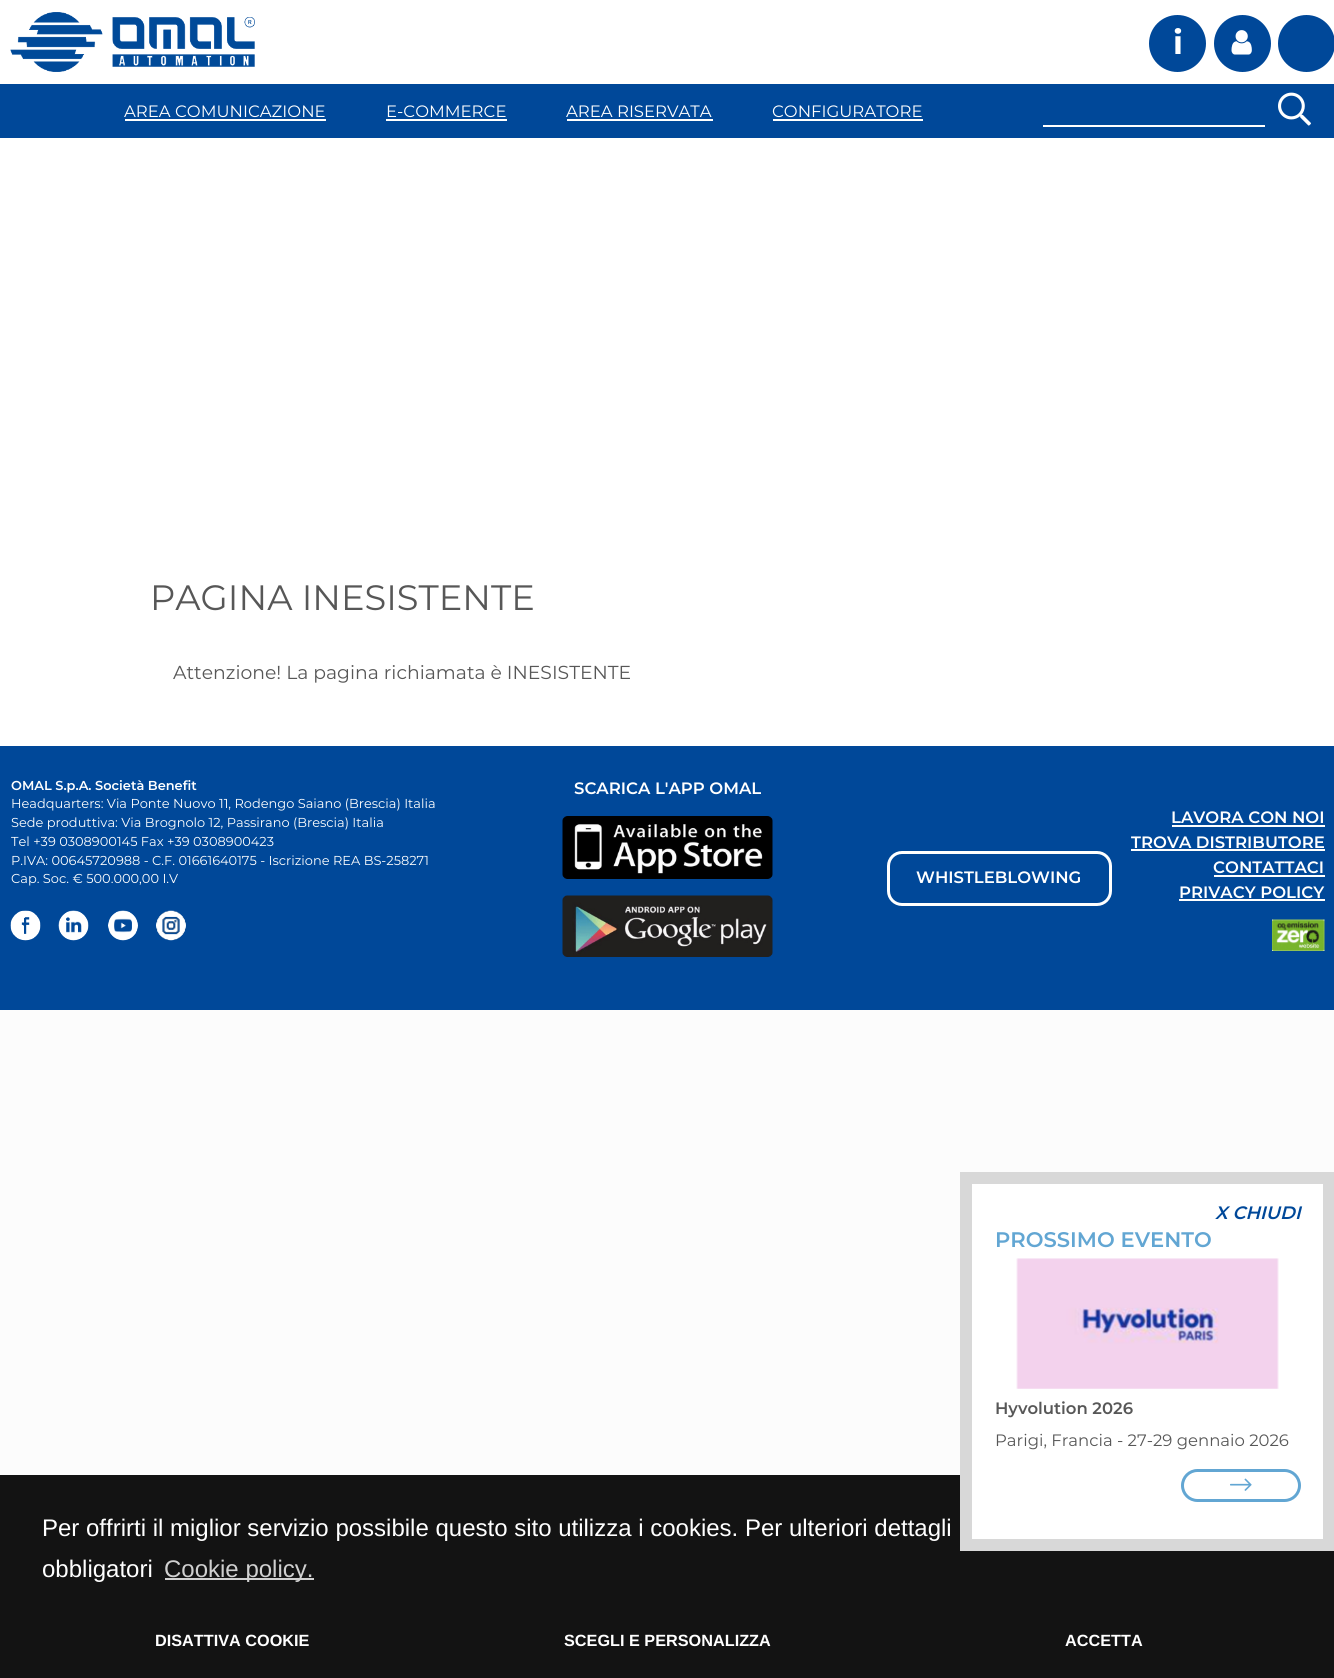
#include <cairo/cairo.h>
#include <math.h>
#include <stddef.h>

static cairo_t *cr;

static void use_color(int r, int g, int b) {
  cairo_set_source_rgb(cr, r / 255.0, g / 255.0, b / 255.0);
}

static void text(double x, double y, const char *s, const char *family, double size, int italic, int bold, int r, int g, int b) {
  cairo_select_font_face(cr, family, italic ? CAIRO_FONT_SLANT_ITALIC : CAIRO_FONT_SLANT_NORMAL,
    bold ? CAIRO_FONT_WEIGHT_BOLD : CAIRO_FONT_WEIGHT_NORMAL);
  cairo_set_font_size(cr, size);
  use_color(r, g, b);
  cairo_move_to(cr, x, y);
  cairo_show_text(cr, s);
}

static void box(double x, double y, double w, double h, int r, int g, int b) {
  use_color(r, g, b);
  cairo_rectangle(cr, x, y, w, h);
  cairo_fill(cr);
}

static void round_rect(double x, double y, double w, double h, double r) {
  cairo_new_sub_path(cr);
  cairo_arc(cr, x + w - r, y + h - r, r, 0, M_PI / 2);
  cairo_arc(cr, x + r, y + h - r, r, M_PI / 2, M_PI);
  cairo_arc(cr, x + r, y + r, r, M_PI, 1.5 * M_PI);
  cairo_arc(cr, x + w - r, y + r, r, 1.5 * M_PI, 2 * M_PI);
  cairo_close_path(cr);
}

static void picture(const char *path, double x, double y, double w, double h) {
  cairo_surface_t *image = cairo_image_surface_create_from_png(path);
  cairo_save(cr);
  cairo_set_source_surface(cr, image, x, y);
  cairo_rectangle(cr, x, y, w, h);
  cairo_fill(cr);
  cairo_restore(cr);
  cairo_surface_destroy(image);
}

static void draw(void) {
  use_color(252, 252, 252);
  cairo_paint(cr);
  box(0, 0, 1334, 746, 255, 255, 255);
  picture("img_01.png", 10, 12, 245, 60);
  use_color(0, 72, 153);
  cairo_arc(cr, 1177.5, 43.5, 28.5, 0, 2 * M_PI);
  cairo_fill(cr);
  cairo_arc(cr, 1242.5, 43.5, 28.5, 0, 2 * M_PI);
  cairo_fill(cr);
  picture("img_02.png", 1231, 30, 21, 25);
  cairo_arc(cr, 1306.5, 43.5, 28.5, 0, 2 * M_PI);
  cairo_fill(cr);
  box(0, 84, 1334, 54, 0, 72, 153);
  box(125, 119, 201, 2, 255, 255, 255);
  box(386, 119, 121, 2, 255, 255, 255);
  box(567, 119, 146, 2, 255, 255, 255);
  box(773, 119, 150, 2, 255, 255, 255);
  box(1043, 125, 222, 2, 255, 255, 255);
  picture("img_03.png", 1278, 92, 33, 34);
  box(0, 746, 1334, 264, 0, 72, 153);
  picture("img_04.png", 10, 910, 31, 31);
  picture("img_05.png", 58, 910, 31, 31);
  picture("img_06.png", 108, 910, 30, 31);
  picture("img_07.png", 156, 910, 30, 31);
  picture("img_08.png", 562, 816, 211, 63);
  picture("img_09.png", 562, 895, 211, 62);
  round_rect(888.5, 852.5, 222, 52, 13.5);
  use_color(255, 255, 255);
  cairo_set_line_width(cr, 3);
  cairo_stroke(cr);
  box(1172, 825, 153, 2, 255, 255, 255);
  box(1131, 849, 194, 2, 255, 255, 255);
  box(1214, 875, 111, 2, 255, 255, 255);
  box(1179, 899, 146, 2, 255, 255, 255);
  picture("img_10.png", 1272, 919, 53, 32);
  box(0, 1475, 1334, 203, 19, 19, 19);
  use_color(255, 255, 255);
  cairo_rectangle(cr, 966, 1178, 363, 367);
  cairo_fill_preserve(cr);
  use_color(216, 216, 216);
  cairo_set_line_width(cr, 12);
  cairo_stroke(cr);
  picture("img_11.png", 1016, 1258, 263, 131);
  picture("img_12.png", 1230, 1478, 22, 13);
  round_rect(1182.5, 1470.5, 117, 30, 15);
  use_color(98, 166, 211);
  cairo_set_line_width(cr, 3);
  cairo_stroke(cr);
  box(165, 1578, 149, 2, 208, 208, 208);
  text(1173, 54, "i", "Montserrat", 33, 0, 1, 255, 255, 255);
  text(124, 117, "AREA COMUNICAZIONE", "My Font", 16.5, 0, 0, 255, 255, 255);
  text(386, 117, "E-COMMERCE", "My Font", 16.5, 0, 0, 255, 255, 255);
  text(566, 117, "AREA RISERVATA", "My Font", 16.5, 0, 0, 255, 255, 255);
  text(772, 117, "CONFIGURATORE", "My Font", 16.5, 0, 0, 255, 255, 255);
  text(150, 610, "PAGINA INESISTENTE", "My Font", 35.25, 0, 0, 87, 87, 87);
  text(173, 679, "Attenzione! La pagina richiamata è INESISTENTE", "My Font", 18.8, 0, 0, 87, 87, 87);
  text(11, 790, "OMAL S.p.A. Società Benefit", "Montserrat SemiBold", 12.95, 0, 0, 255, 255, 255);
  text(11, 808, "Headquarters: Via Ponte Nuovo 11, Rodengo Saiano (Brescia) Italia", "My Font", 12.95, 0, 0, 255, 255, 255);
  text(11, 827, "Sede produttiva: Via Brognolo 12, Passirano (Brescia) Italia", "My Font", 12.95, 0, 0, 255, 255, 255);
  text(11, 846, "Tel +39 0308900145 Fax +39 0308900423", "My Font", 12.95, 0, 0, 255, 255, 255);
  text(11, 865, "P.IVA: 00645720988 - C.F. 01661640175 - Iscrizione REA BS-258271", "My Font", 12.95, 0, 0, 255, 255, 255);
  text(11, 883, "Cap. Soc. € 500.000,00 I.V", "My Font", 12.95, 0, 0, 255, 255, 255);
  text(574, 794, "SCARICA L'APP OMAL", "Montserrat SemiBold", 16.5, 0, 0, 255, 255, 255);
  text(916, 883, "WHISTLEBLOWING", "Montserrat SemiBold", 16.5, 0, 0, 255, 255, 255);
  text(1171, 823, "LAVORA CON NOI", "Montserrat SemiBold", 16.5, 0, 0, 255, 255, 255);
  text(1131, 848, "TROVA DISTRIBUTORE", "Montserrat SemiBold", 16.5, 0, 0, 255, 255, 255);
  text(1213, 873, "CONTATTACI", "Montserrat SemiBold", 16.5, 0, 0, 255, 255, 255);
  text(1179, 898, "PRIVACY POLICY", "Montserrat SemiBold", 16.5, 0, 0, 255, 255, 255);
  text(1215, 1219, "X CHIUDI", "Montserrat SemiBold", 18, 1, 0, 0, 72, 153);
  text(995, 1247, "PROSSIMO EVENTO", "Montserrat SemiBold", 21.1, 0, 0, 98, 166, 211);
  text(995, 1414, "Hyvolution 2026", "Montserrat SemiBold", 16.5, 0, 0, 87, 87, 87);
  text(995, 1446, "Parigi, Francia - 27-29 gennaio 2026", "My Font", 16.5, 0, 0, 87, 87, 87);
  text(42, 1536, "Per offrirti il miglior servizio possibile questo sito utilizza i cookies. Per ulteriori dettagli", "Liberation Sans", 24, 0, 0, 255, 255, 255);
  text(42, 1577, "obbligatori", "Liberation Sans", 24, 0, 0, 255, 255, 255);
  text(164, 1577, "Cookie policy.", "Liberation Sans", 24, 0, 0, 208, 208, 208);
  text(155, 1646, "DISATTIVA COOKIE", "Liberation Sans", 16.25, 0, 1, 255, 255, 255);
  text(564, 1646, "SCEGLI E PERSONALIZZA", "Liberation Sans", 16.25, 0, 1, 255, 255, 255);
  text(1065, 1646, "ACCETTA", "Liberation Sans", 16.25, 0, 1, 255, 255, 255);
}

int main(void) {
  cairo_surface_t *surface = cairo_image_surface_create(CAIRO_FORMAT_RGB24, 1334, 1678);
  cr = cairo_create(surface);
  cairo_font_options_t *options = cairo_font_options_create();
  cairo_font_options_set_hint_metrics(options, CAIRO_HINT_METRICS_OFF);
  cairo_font_options_set_hint_style(options, CAIRO_HINT_STYLE_NONE);
  cairo_set_font_options(cr, options);
  cairo_set_miter_limit(cr, 4);
  draw();
  cairo_surface_write_to_png(surface, "out.png");
  cairo_font_options_destroy(options);
  cairo_destroy(cr);
  cairo_surface_destroy(surface);
  return 0;
}
